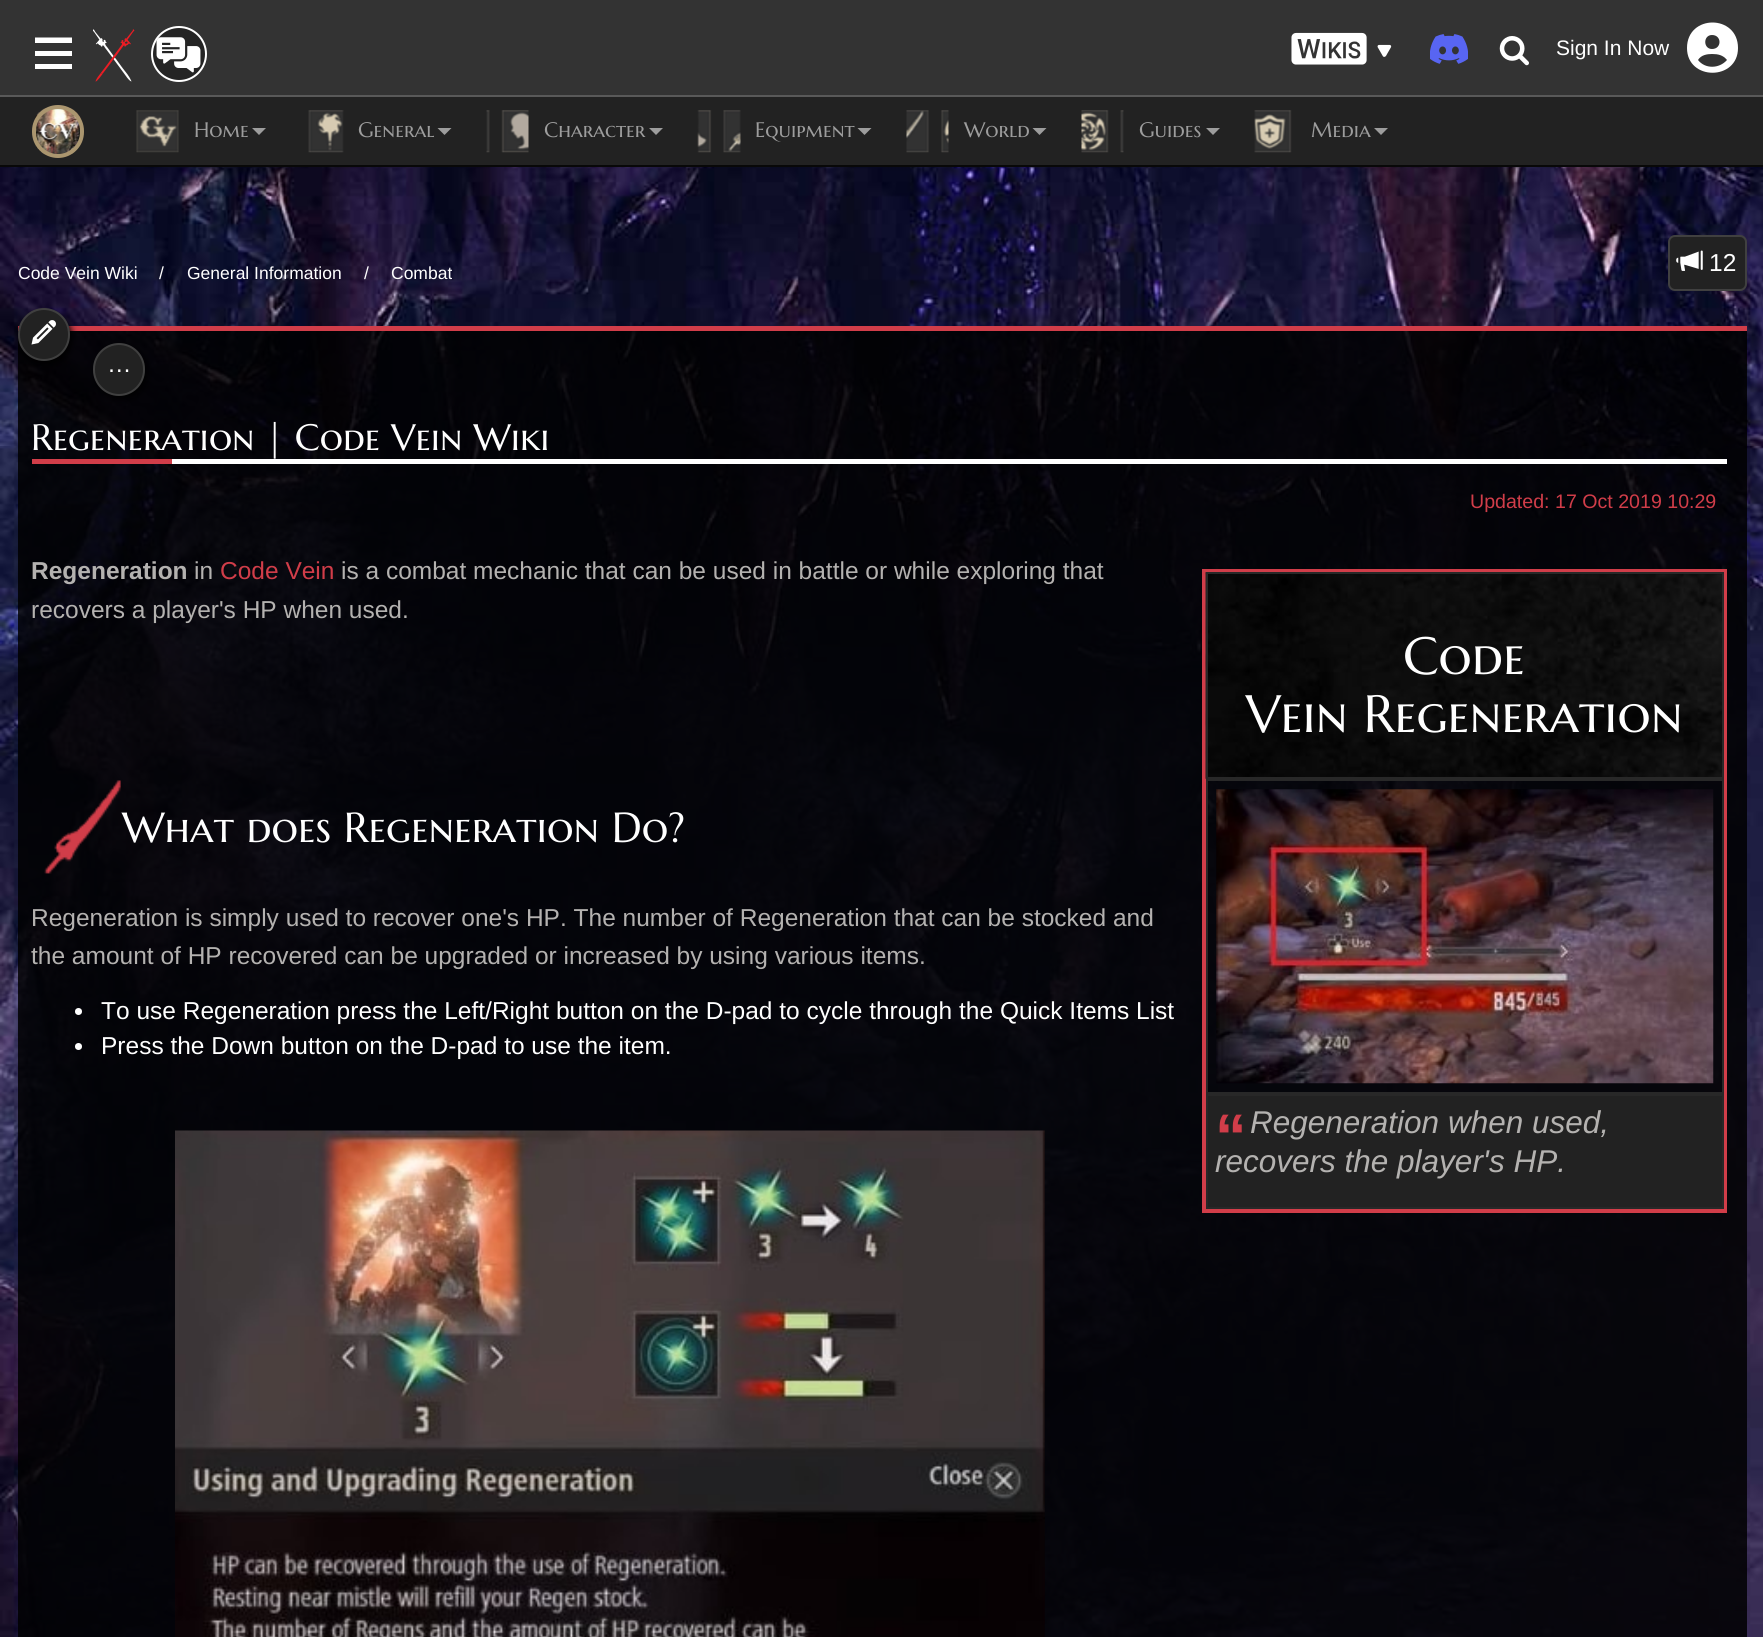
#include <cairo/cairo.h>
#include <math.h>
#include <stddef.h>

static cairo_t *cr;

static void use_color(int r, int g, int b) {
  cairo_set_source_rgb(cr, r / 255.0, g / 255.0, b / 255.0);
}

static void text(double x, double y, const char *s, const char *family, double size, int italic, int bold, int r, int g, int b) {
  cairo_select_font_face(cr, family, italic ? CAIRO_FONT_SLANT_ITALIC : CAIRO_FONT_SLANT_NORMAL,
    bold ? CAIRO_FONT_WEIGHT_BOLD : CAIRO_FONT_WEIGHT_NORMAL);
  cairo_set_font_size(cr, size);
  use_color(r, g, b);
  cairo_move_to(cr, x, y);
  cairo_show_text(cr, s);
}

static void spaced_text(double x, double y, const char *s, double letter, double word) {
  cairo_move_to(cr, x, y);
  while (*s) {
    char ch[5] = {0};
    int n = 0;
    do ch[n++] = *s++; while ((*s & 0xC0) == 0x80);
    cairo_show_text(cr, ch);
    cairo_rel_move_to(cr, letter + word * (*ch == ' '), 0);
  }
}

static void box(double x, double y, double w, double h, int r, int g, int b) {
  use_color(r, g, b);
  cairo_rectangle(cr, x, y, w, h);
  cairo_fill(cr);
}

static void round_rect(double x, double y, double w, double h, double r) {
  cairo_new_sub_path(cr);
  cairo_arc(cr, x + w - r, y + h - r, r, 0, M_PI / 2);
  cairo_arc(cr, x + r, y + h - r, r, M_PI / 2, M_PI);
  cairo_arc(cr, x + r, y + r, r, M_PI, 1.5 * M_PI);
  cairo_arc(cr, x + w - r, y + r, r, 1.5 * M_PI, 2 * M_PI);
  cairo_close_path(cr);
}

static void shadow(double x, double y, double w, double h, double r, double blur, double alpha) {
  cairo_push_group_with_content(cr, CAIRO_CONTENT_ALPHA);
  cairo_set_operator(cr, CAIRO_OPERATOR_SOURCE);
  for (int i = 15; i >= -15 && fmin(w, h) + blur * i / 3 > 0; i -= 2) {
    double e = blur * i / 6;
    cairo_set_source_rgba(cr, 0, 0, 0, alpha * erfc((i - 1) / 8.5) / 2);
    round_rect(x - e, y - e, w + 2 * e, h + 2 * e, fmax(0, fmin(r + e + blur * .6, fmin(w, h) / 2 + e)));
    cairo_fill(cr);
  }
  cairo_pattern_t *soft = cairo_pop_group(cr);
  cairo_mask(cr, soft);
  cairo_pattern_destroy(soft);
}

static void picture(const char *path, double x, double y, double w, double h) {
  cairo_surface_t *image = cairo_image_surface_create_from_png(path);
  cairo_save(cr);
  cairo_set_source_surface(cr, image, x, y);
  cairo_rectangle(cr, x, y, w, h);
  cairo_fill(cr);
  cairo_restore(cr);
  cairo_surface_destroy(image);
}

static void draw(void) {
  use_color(255, 255, 255);
  cairo_paint(cr);
  box(0, 0, 1763, 95, 51, 51, 51);
  box(0, 95, 1763, 2, 89, 89, 89);
  use_color(255, 255, 255);
  cairo_new_path(cr);
  cairo_move_to(cr, 35, 37.5);
  cairo_line_to(cr, 72, 37.5);
  cairo_line_to(cr, 72, 43);
  cairo_line_to(cr, 35, 43);
  cairo_close_path(cr);
  cairo_move_to(cr, 35, 51);
  cairo_line_to(cr, 72, 51);
  cairo_line_to(cr, 72, 56);
  cairo_line_to(cr, 35, 56);
  cairo_close_path(cr);
  cairo_move_to(cr, 72, 64);
  cairo_line_to(cr, 72, 69);
  cairo_line_to(cr, 35, 69);
  cairo_line_to(cr, 35, 64);
  cairo_close_path(cr);
  cairo_fill(cr);
  picture("img_01.png", 93, 29, 42, 53);
  use_color(36, 36, 36);
  cairo_arc(cr, 179, 54, 27, 0, 2 * M_PI);
  cairo_fill_preserve(cr);
  use_color(255, 255, 255);
  cairo_stroke(cr);
  picture("img_02.png", 156, 37, 45, 36);
  picture("img_03.png", 1291, 32, 101, 33);
  picture("img_04.png", 1430, 34, 38, 30);
  picture("img_05.png", 1499, 36, 30, 30);
  cairo_new_path(cr);
  cairo_move_to(cr, 1727, 60);
  cairo_curve_to(cr, 1723, 55, 1718, 54, 1712, 54);
  cairo_curve_to(cr, 1707, 54, 1701, 55, 1698, 60);
  cairo_curve_to(cr, 1705, 69, 1719, 69, 1727, 60);
  cairo_close_path(cr);
  cairo_move_to(cr, 1687, 48);
  cairo_curve_to(cr, 1687, 14, 1738, 14, 1738, 48);
  cairo_curve_to(cr, 1738, 81, 1687, 81, 1687, 48);
  cairo_close_path(cr);
  cairo_move_to(cr, 1712, 49);
  cairo_curve_to(cr, 1722, 49, 1722, 35, 1712, 35);
  cairo_curve_to(cr, 1703, 35, 1703, 49, 1712, 49);
  cairo_close_path(cr);
  cairo_fill(cr);
  box(0, 97, 1763, 68, 34, 34, 34);
  box(0, 165, 1763, 2, 8, 8, 8);
  picture("img_06.png", 34, 108, 47, 47);
  round_rect(34, 107, 48, 49, 24);
  use_color(171, 150, 111);
  cairo_set_line_width(cr, 4);
  cairo_stroke(cr);
  picture("img_07.png", 136, 110, 43, 43);
  use_color(157, 157, 157);
  cairo_new_path(cr);
  cairo_move_to(cr, 252, 128);
  cairo_line_to(cr, 266, 128);
  cairo_line_to(cr, 259, 135);
  cairo_close_path(cr);
  cairo_fill(cr);
  picture("img_08.png", 308, 110, 36, 43);
  cairo_new_path(cr);
  cairo_move_to(cr, 437.5, 128);
  cairo_line_to(cr, 451.5, 128);
  cairo_line_to(cr, 444.5, 135);
  cairo_close_path(cr);
  cairo_fill(cr);
  picture("img_09.png", 486, 110, 43, 43);
  cairo_new_path(cr);
  cairo_move_to(cr, 649, 128);
  cairo_line_to(cr, 663, 128);
  cairo_line_to(cr, 656, 135);
  cairo_close_path(cr);
  cairo_fill(cr);
  picture("img_10.png", 697, 110, 44, 43);
  cairo_new_path(cr);
  cairo_move_to(cr, 857.5, 128);
  cairo_line_to(cr, 871.5, 128);
  cairo_line_to(cr, 864.5, 135);
  cairo_close_path(cr);
  cairo_fill(cr);
  picture("img_11.png", 906, 110, 43, 43);
  cairo_new_path(cr);
  cairo_move_to(cr, 1032.5, 128);
  cairo_line_to(cr, 1046.5, 128);
  cairo_line_to(cr, 1039.5, 135);
  cairo_close_path(cr);
  cairo_fill(cr);
  picture("img_12.png", 1081, 110, 43, 43);
  cairo_new_path(cr);
  cairo_move_to(cr, 1206, 128);
  cairo_line_to(cr, 1220, 128);
  cairo_line_to(cr, 1213, 135);
  cairo_close_path(cr);
  cairo_fill(cr);
  picture("img_13.png", 1254, 110, 38, 43);
  cairo_new_path(cr);
  cairo_move_to(cr, 1374, 128);
  cairo_line_to(cr, 1388, 128);
  cairo_line_to(cr, 1381, 135);
  cairo_close_path(cr);
  cairo_fill(cr);
  picture("img_14.png", 0, 167, 1763, 1470);
  use_color(34, 34, 34);
  round_rect(1669, 236, 77, 54, 6);
  cairo_fill_preserve(cr);
  use_color(64, 64, 64);
  cairo_set_line_width(cr, 2);
  cairo_stroke(cr);
  picture("img_15.png", 1676, 250, 27, 21);
  cairo_set_source_rgba(cr, 0, 0, 0, 0.85);
  cairo_rectangle(cr, 18, 331, 1729, 1306);
  cairo_fill(cr);
  box(18, 326, 1729, 5, 209, 61, 73);
  use_color(0, 0, 0);
  shadow(19, 312, 53, 52, 26, 3.5, 1);
  use_color(34, 34, 34);
  round_rect(19, 309, 50, 51, 25);
  cairo_fill_preserve(cr);
  use_color(64, 64, 64);
  cairo_stroke(cr);
  picture("img_16.png", 31, 320, 25, 25);
  use_color(0, 0, 0);
  shadow(95, 347, 52, 52, 26, 3.5, 1);
  use_color(34, 34, 34);
  round_rect(94, 344, 50, 51, 25);
  cairo_fill_preserve(cr);
  use_color(64, 64, 64);
  cairo_stroke(cr);
  box(172, 459, 1555, 5, 255, 255, 255);
  box(32, 459, 140, 5, 209, 61, 73);
  picture("img_17.png", 44, 780, 77, 94);
  cairo_rectangle(cr, 1204, 571, 521, 640);
  cairo_set_line_width(cr, 4);
  cairo_stroke(cr);
  picture("img_18.png", 1205, 572, 517, 207);
  cairo_rectangle(cr, 1207, 573, 516, 205);
  use_color(40, 40, 40);
  cairo_set_line_width(cr, 2);
  cairo_stroke(cr);
  cairo_rectangle(cr, 1207, 780, 516, 313);
  cairo_stroke(cr);
  picture("img_19.png", 1216, 789, 498, 295);
  use_color(34, 34, 34);
  cairo_rectangle(cr, 1207, 1095, 516, 113);
  cairo_fill_preserve(cr);
  use_color(40, 40, 40);
  cairo_stroke(cr);
  use_color(255, 255, 255);
  cairo_arc(cr, 78.5, 1011.5, 3.5, 0, 2 * M_PI);
  cairo_fill(cr);
  cairo_arc(cr, 78.5, 1046.5, 3.5, 0, 2 * M_PI);
  cairo_fill(cr);
  picture("img_20.png", 175, 1130, 870, 507);
  text(1556, 55, "Sign In Now", "Liberation Sans", 21, 0, 0, 255, 255, 255);
  text(194, 137, "Home", "Marcellus SC", 21, 0, 0, 157, 157, 157);
  text(358, 137, "General", "Marcellus SC", 21, 0, 0, 157, 157, 157);
  text(544, 137, "Character", "Marcellus SC", 21, 0, 0, 157, 157, 157);
  text(755, 137, "Equipment", "Marcellus SC", 21, 0, 0, 157, 157, 157);
  text(964, 137, "World", "Marcellus SC", 21, 0, 0, 157, 157, 157);
  text(1139, 137, "Guides", "Marcellus SC", 21, 0, 0, 157, 157, 157);
  text(1311, 137, "Media", "Marcellus SC", 21, 0, 0, 157, 157, 157);
  text(1709, 271, "12", "Liberation Sans", 24.5, 0, 0, 255, 255, 255);
  text(18, 279, "Code Vein Wiki", "Liberation Sans", 17.5, 0, 0, 255, 255, 255);
  text(159, 279, "/", "Liberation Sans", 17.5, 0, 0, 255, 255, 255);
  text(187, 279, "General Information", "Liberation Sans", 17.5, 0, 0, 255, 255, 255);
  text(364, 279, "/", "Liberation Sans", 17.5, 0, 0, 255, 255, 255);
  text(391, 279, "Combat", "Liberation Sans", 17.5, 0, 0, 255, 255, 255);
  text(107, 372, "…", "Liberation Sans", 24.5, 0, 0, 255, 255, 255);
  text(31, 450, "Regeneration | Code Vein Wiki", "Marcellus SC", 36.75, 0, 0, 255, 255, 255);
  text(1470, 508, "Updated: 17 Oct 2019 10:29", "Liberation Sans", 19.6, 0, 0, 209, 61, 73);
  text(31, 579, "Regeneration", "Liberation Sans", 24.5, 0, 1, 180, 178, 176);
  text(194, 579, "in", "Liberation Sans", 24.5, 0, 0, 180, 178, 176);
  text(220, 579, "Code Vein", "Liberation Sans", 24.5, 0, 0, 209, 61, 73);
  text(341, 579, "is a combat mechanic that can be used in battle or while exploring that", "Liberation Sans", 24.5, 0, 0, 180, 178, 176);
  text(31, 618, "recovers a player's HP when used.", "Liberation Sans", 24.5, 0, 0, 180, 178, 176);
  text(122, 842, "What does Regeneration Do?", "Marcellus SC", 42, 0, 0, 255, 255, 255);
  text(1403, 674, "Code", "Marcellus SC", 52.5, 0, 0, 255, 255, 255);
  text(1246, 732, "Vein Regeneration", "Marcellus SC", 52.5, 0, 0, 255, 255, 255);
  cairo_select_font_face(cr, "Liberation Sans", CAIRO_FONT_SLANT_NORMAL, CAIRO_FONT_WEIGHT_BOLD);
  cairo_set_font_size(cr, 63);
  use_color(209, 61, 73);
  spaced_text(1215, 1158, "“", -5, 0);
  text(1250, 1133, "Regeneration when used,", "Liberation Sans", 31.5, 1, 0, 180, 178, 176);
  text(1215, 1172, "recovers the player's HP.", "Liberation Sans", 31.5, 1, 0, 180, 178, 176);
  text(31, 926, "Regeneration is simply used to recover one's HP. The number of Regeneration that can be stocked and", "Liberation Sans", 24.5, 0, 0, 180, 178, 176);
  text(31, 964, "the amount of HP recovered can be upgraded or increased by using various items.", "Liberation Sans", 24.5, 0, 0, 180, 178, 176);
  text(101, 1019, "To use Regeneration press the Left/Right button on the D-pad to cycle through the Quick Items List", "Liberation Sans", 24.5, 0, 0, 255, 255, 255);
  text(101, 1054, "Press the Down button on the D-pad to use the item.", "Liberation Sans", 24.5, 0, 0, 255, 255, 255);
}

int main(void) {
  cairo_surface_t *surface = cairo_image_surface_create(CAIRO_FORMAT_RGB24, 1763, 1637);
  cr = cairo_create(surface);
  cairo_font_options_t *options = cairo_font_options_create();
  cairo_font_options_set_hint_metrics(options, CAIRO_HINT_METRICS_OFF);
  cairo_font_options_set_hint_style(options, CAIRO_HINT_STYLE_NONE);
  cairo_set_font_options(cr, options);
  cairo_set_miter_limit(cr, 4);
  draw();
  cairo_surface_write_to_png(surface, "out.png");
  cairo_font_options_destroy(options);
  cairo_destroy(cr);
  cairo_surface_destroy(surface);
  return 0;
}
